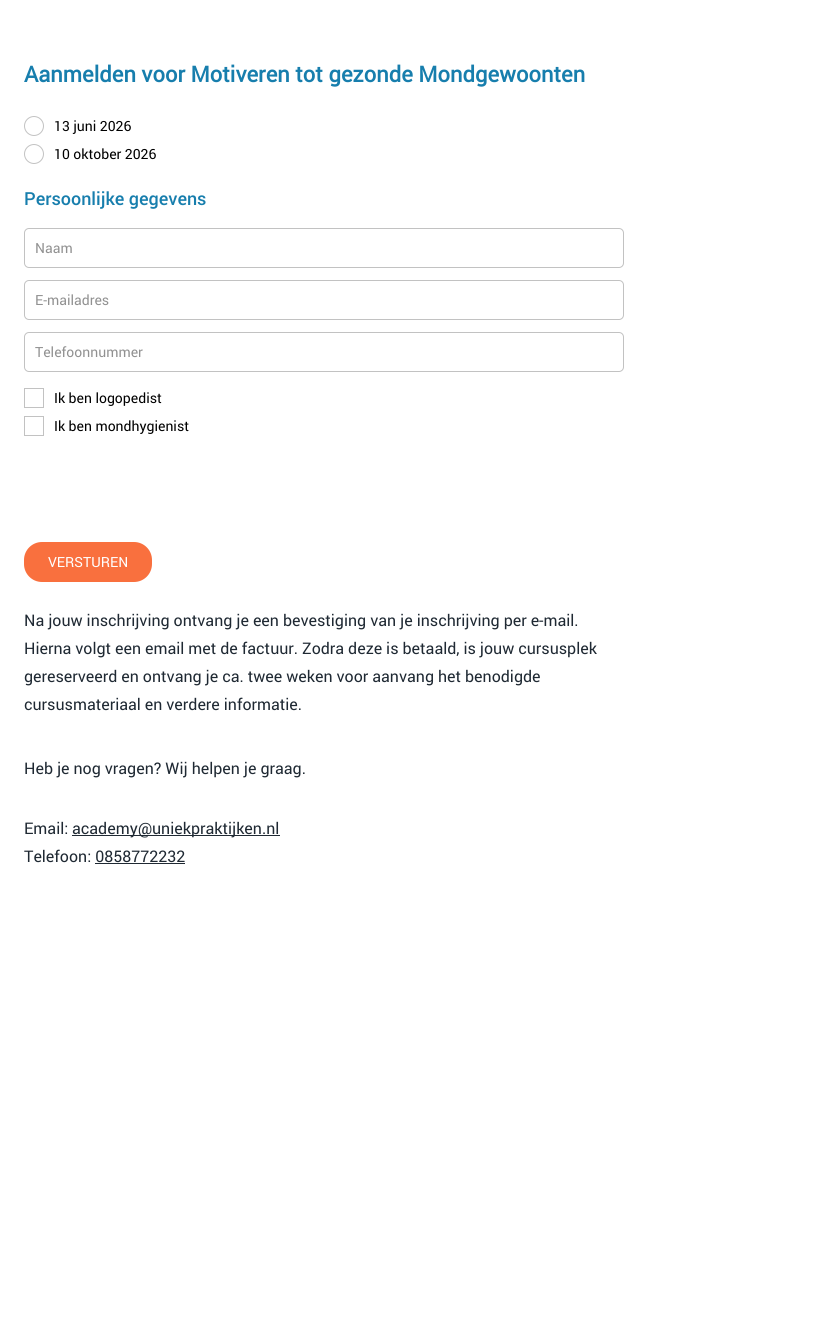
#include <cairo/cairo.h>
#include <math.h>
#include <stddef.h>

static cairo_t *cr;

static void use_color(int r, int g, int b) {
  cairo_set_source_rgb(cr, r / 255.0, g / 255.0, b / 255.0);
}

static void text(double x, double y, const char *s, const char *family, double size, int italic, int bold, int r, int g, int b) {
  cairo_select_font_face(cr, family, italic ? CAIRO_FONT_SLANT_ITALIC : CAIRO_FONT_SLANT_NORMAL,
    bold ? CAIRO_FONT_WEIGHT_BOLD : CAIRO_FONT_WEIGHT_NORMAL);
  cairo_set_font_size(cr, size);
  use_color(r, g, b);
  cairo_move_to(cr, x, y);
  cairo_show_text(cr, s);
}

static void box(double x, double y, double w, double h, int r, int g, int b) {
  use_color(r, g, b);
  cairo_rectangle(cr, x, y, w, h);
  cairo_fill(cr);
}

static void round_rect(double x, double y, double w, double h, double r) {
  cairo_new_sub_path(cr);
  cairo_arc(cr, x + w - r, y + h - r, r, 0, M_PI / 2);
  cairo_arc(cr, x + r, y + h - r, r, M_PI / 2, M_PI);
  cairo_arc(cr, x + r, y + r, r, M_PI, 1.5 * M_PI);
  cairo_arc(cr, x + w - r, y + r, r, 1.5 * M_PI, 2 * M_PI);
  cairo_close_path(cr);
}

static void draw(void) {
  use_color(255, 255, 255);
  cairo_paint(cr);
  cairo_arc(cr, 34, 126, 9.5, 0, 2 * M_PI);
  use_color(194, 194, 194);
  cairo_set_line_width(cr, 1);
  cairo_stroke(cr);
  cairo_arc(cr, 34, 154, 9.5, 0, 2 * M_PI);
  cairo_stroke(cr);
  round_rect(24.5, 228.5, 599, 39, 4.5);
  cairo_stroke(cr);
  round_rect(24.5, 280.5, 599, 39, 4.5);
  cairo_stroke(cr);
  round_rect(24.5, 332.5, 599, 39, 4.5);
  cairo_stroke(cr);
  cairo_rectangle(cr, 24.5, 388.5, 19, 19);
  cairo_stroke(cr);
  cairo_rectangle(cr, 24.5, 416.5, 19, 19);
  cairo_stroke(cr);
  use_color(249, 112, 62);
  round_rect(24, 542, 128, 40, 18);
  cairo_fill(cr);
  box(72, 835, 208, 1, 31, 41, 51);
  box(95, 863, 90, 1, 31, 41, 51);
  text(24, 82, "Aanmelden voor Motiveren tot gezonde Mondgewoonten", "Roboto", 22, 0, 1, 23, 126, 173);
  text(54, 131, "13 juni 2026", "Roboto", 14, 0, 0, 0, 0, 0);
  text(54, 159, "10 oktober 2026", "Roboto", 14, 0, 0, 0, 0, 0);
  text(24, 205, "Persoonlijke gegevens", "Roboto Medium", 18, 0, 0, 23, 126, 173);
  text(35, 253, "Naam", "Roboto", 14, 0, 0, 145, 145, 145);
  text(35, 305, "E-mailadres", "Roboto", 14, 0, 0, 145, 145, 145);
  text(35, 357, "Telefoonnummer", "Roboto", 14, 0, 0, 145, 145, 145);
  text(54, 403, "Ik ben logopedist", "Roboto", 14, 0, 0, 0, 0, 0);
  text(54, 431, "Ik ben mondhygienist", "Roboto", 14, 0, 0, 0, 0, 0);
  text(48, 567, "VERSTUREN", "Roboto", 14, 0, 0, 255, 255, 255);
  text(24, 626, "Na jouw inschrijving ontvang je een bevestiging van je inschrijving per e-mail.", "Roboto", 16, 0, 0, 31, 41, 51);
  text(24, 654, "Hierna volgt een email met de factuur. Zodra deze is betaald, is jouw cursusplek", "Roboto", 16, 0, 0, 31, 41, 51);
  text(24, 682, "gereserveerd en ontvang je ca. twee weken voor aanvang het benodigde", "Roboto", 16, 0, 0, 31, 41, 51);
  text(24, 710, "cursusmateriaal en verdere informatie.", "Roboto", 16, 0, 0, 31, 41, 51);
  text(24, 774, "Heb je nog vragen? Wij helpen je graag.", "Roboto", 16, 0, 0, 31, 41, 51);
  text(24, 834, "Email:", "Roboto", 16, 0, 0, 31, 41, 51);
  text(72, 834, "academy@uniekpraktijken.nl", "Roboto", 16, 0, 0, 31, 41, 51);
  text(24, 862, "Telefoon: 0858772232", "Roboto", 16, 0, 0, 31, 41, 51);
}

int main(void) {
  cairo_surface_t *surface = cairo_image_surface_create(CAIRO_FORMAT_RGB24, 838, 1318);
  cr = cairo_create(surface);
  cairo_font_options_t *options = cairo_font_options_create();
  cairo_font_options_set_hint_metrics(options, CAIRO_HINT_METRICS_OFF);
  cairo_font_options_set_hint_style(options, CAIRO_HINT_STYLE_NONE);
  cairo_set_font_options(cr, options);
  cairo_set_miter_limit(cr, 4);
  draw();
  cairo_surface_write_to_png(surface, "out.png");
  cairo_font_options_destroy(options);
  cairo_destroy(cr);
  cairo_surface_destroy(surface);
  return 0;
}
